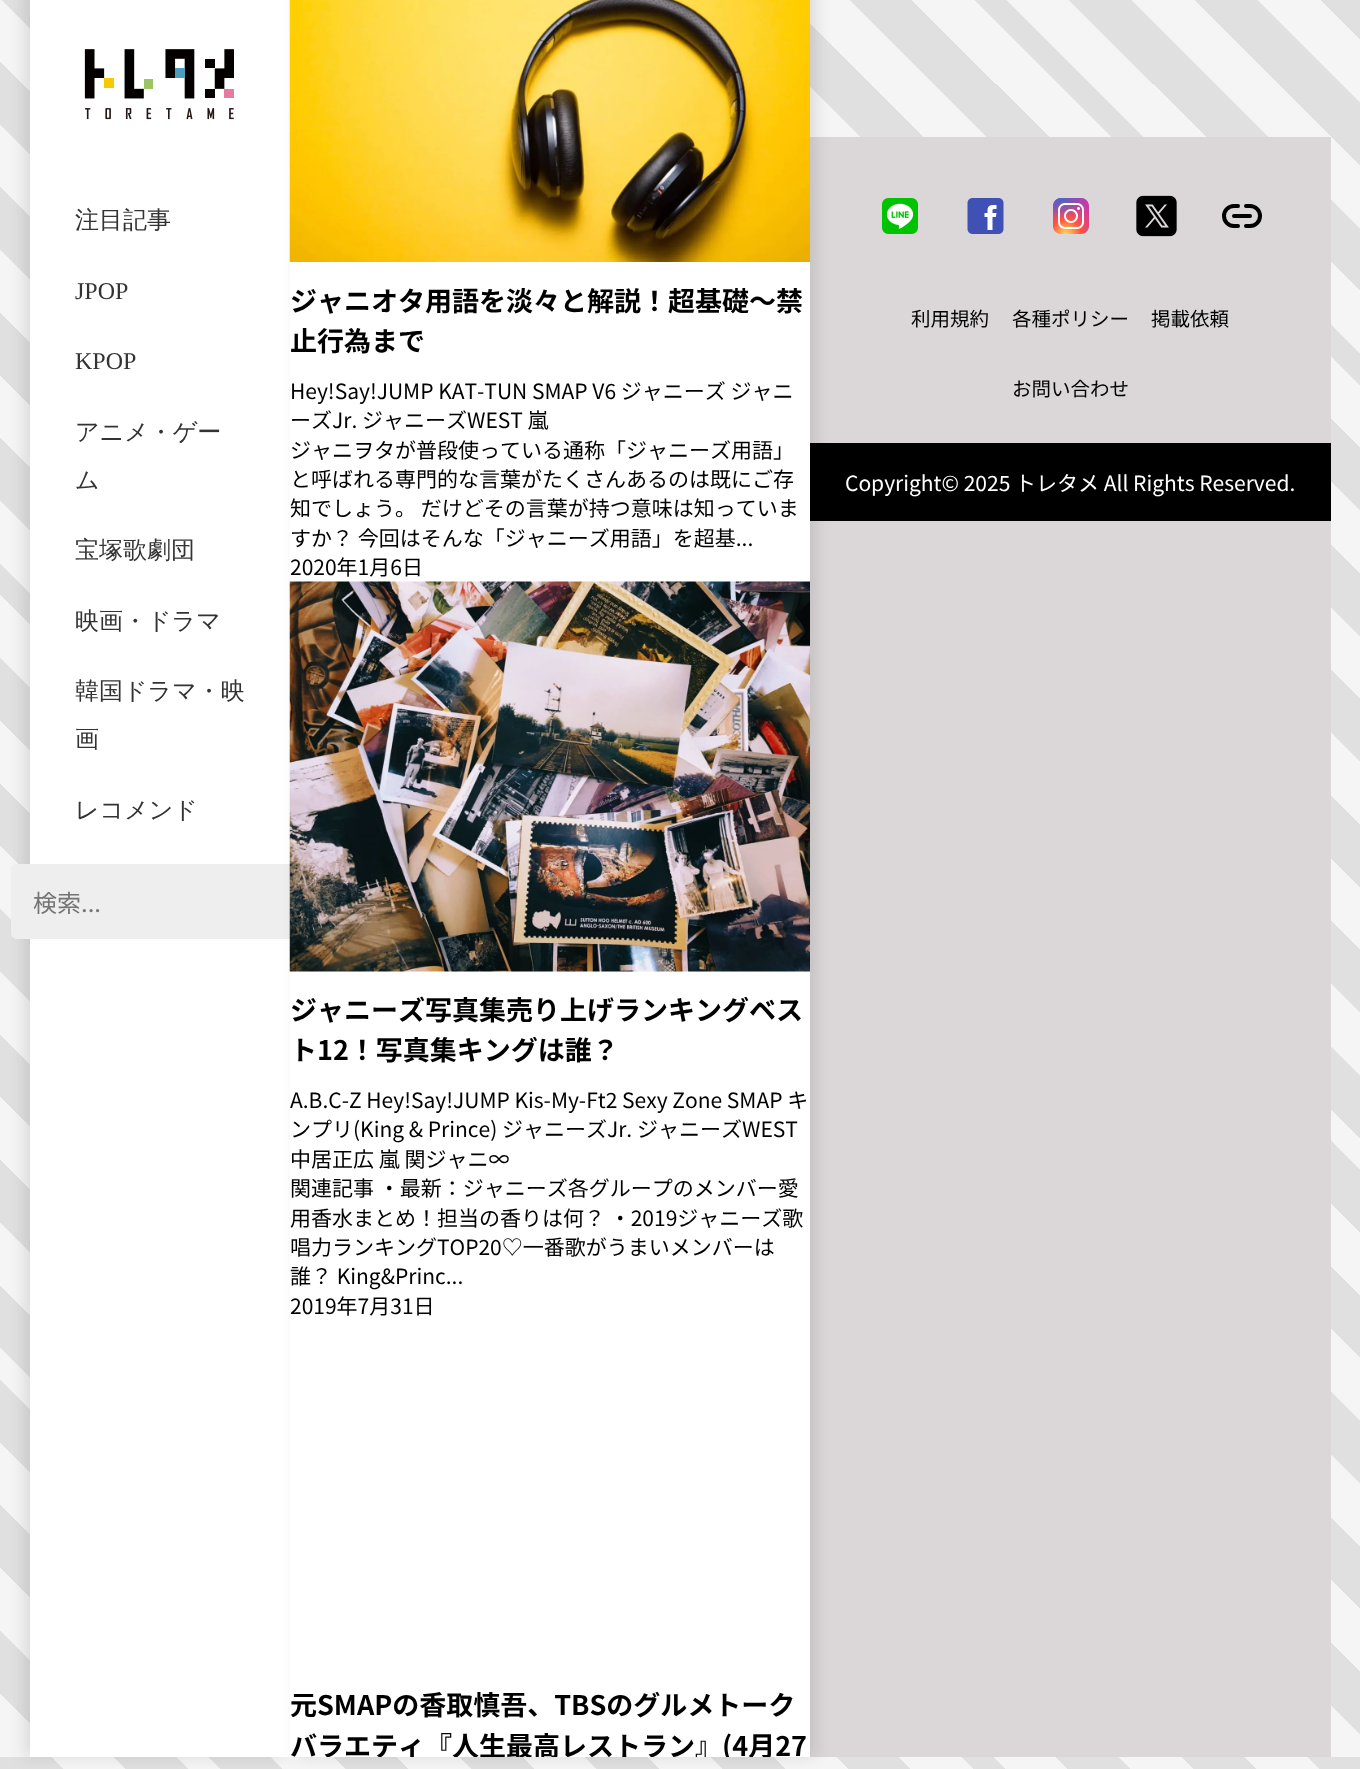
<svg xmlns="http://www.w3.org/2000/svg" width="1360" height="1769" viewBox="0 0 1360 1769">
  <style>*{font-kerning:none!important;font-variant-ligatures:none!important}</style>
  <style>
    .t1 { font: 500 24px WenQuanYi Zen Hei; fill: #333; }
    .t2 { font: 24px Liberation Serif; fill: #333; }
    .t3 { font: 24px Noto Sans JP; fill: #757575; }
    .t4 { font: bold 27px Noto Sans JP; fill: #000; }
    .t5 { font: 21px Noto Sans JP; fill: #000; }
    .t6 { font: 19.5px Noto Sans JP; fill: #000; }
    .t7 { font: 21px Noto Sans JP; fill: #fff; }
  </style>
  <defs>
    <linearGradient id="g1" gradientUnits="userSpaceOnUse" x1="-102" y1="1654" x2="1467" y2="84"><stop offset="0" stop-color="#f5f5f5"/><stop offset="0.01" stop-color="#f5f5f5"/><stop offset="0.01" stop-color="#e0e0e0"/><stop offset="0.01" stop-color="#e0e0e0"/><stop offset="0.01" stop-color="#f5f5f5"/><stop offset="0.02" stop-color="#f5f5f5"/><stop offset="0.02" stop-color="#e0e0e0"/><stop offset="0.03" stop-color="#e0e0e0"/><stop offset="0.03" stop-color="#f5f5f5"/><stop offset="0.03" stop-color="#f5f5f5"/><stop offset="0.03" stop-color="#e0e0e0"/><stop offset="0.04" stop-color="#e0e0e0"/><stop offset="0.04" stop-color="#f5f5f5"/><stop offset="0.05" stop-color="#f5f5f5"/><stop offset="0.05" stop-color="#e0e0e0"/><stop offset="0.05" stop-color="#e0e0e0"/><stop offset="0.05" stop-color="#f5f5f5"/><stop offset="0.06" stop-color="#f5f5f5"/><stop offset="0.06" stop-color="#e0e0e0"/><stop offset="0.07" stop-color="#e0e0e0"/><stop offset="0.07" stop-color="#f5f5f5"/><stop offset="0.07" stop-color="#f5f5f5"/><stop offset="0.07" stop-color="#e0e0e0"/><stop offset="0.08" stop-color="#e0e0e0"/><stop offset="0.08" stop-color="#f5f5f5"/><stop offset="0.09" stop-color="#f5f5f5"/><stop offset="0.09" stop-color="#e0e0e0"/><stop offset="0.09" stop-color="#e0e0e0"/><stop offset="0.09" stop-color="#f5f5f5"/><stop offset="0.1" stop-color="#f5f5f5"/><stop offset="0.1" stop-color="#e0e0e0"/><stop offset="0.11" stop-color="#e0e0e0"/><stop offset="0.11" stop-color="#f5f5f5"/><stop offset="0.11" stop-color="#f5f5f5"/><stop offset="0.11" stop-color="#e0e0e0"/><stop offset="0.12" stop-color="#e0e0e0"/><stop offset="0.12" stop-color="#f5f5f5"/><stop offset="0.13" stop-color="#f5f5f5"/><stop offset="0.13" stop-color="#e0e0e0"/><stop offset="0.14" stop-color="#e0e0e0"/><stop offset="0.14" stop-color="#f5f5f5"/><stop offset="0.14" stop-color="#f5f5f5"/><stop offset="0.14" stop-color="#e0e0e0"/><stop offset="0.15" stop-color="#e0e0e0"/><stop offset="0.15" stop-color="#f5f5f5"/><stop offset="0.16" stop-color="#f5f5f5"/><stop offset="0.16" stop-color="#e0e0e0"/><stop offset="0.16" stop-color="#e0e0e0"/><stop offset="0.16" stop-color="#f5f5f5"/><stop offset="0.17" stop-color="#f5f5f5"/><stop offset="0.17" stop-color="#e0e0e0"/><stop offset="0.18" stop-color="#e0e0e0"/><stop offset="0.18" stop-color="#f5f5f5"/><stop offset="0.18" stop-color="#f5f5f5"/><stop offset="0.18" stop-color="#e0e0e0"/><stop offset="0.19" stop-color="#e0e0e0"/><stop offset="0.19" stop-color="#f5f5f5"/><stop offset="0.2" stop-color="#f5f5f5"/><stop offset="0.2" stop-color="#e0e0e0"/><stop offset="0.2" stop-color="#e0e0e0"/><stop offset="0.2" stop-color="#f5f5f5"/><stop offset="0.21" stop-color="#f5f5f5"/><stop offset="0.21" stop-color="#e0e0e0"/><stop offset="0.22" stop-color="#e0e0e0"/><stop offset="0.22" stop-color="#f5f5f5"/><stop offset="0.22" stop-color="#f5f5f5"/><stop offset="0.22" stop-color="#e0e0e0"/><stop offset="0.23" stop-color="#e0e0e0"/><stop offset="0.23" stop-color="#f5f5f5"/><stop offset="0.24" stop-color="#f5f5f5"/><stop offset="0.24" stop-color="#e0e0e0"/><stop offset="0.24" stop-color="#e0e0e0"/><stop offset="0.24" stop-color="#f5f5f5"/><stop offset="0.25" stop-color="#f5f5f5"/><stop offset="0.25" stop-color="#e0e0e0"/><stop offset="0.26" stop-color="#e0e0e0"/><stop offset="0.26" stop-color="#f5f5f5"/><stop offset="0.26" stop-color="#f5f5f5"/><stop offset="0.26" stop-color="#e0e0e0"/><stop offset="0.27" stop-color="#e0e0e0"/><stop offset="0.27" stop-color="#f5f5f5"/><stop offset="0.28" stop-color="#f5f5f5"/><stop offset="0.28" stop-color="#e0e0e0"/><stop offset="0.28" stop-color="#e0e0e0"/><stop offset="0.28" stop-color="#f5f5f5"/><stop offset="0.29" stop-color="#f5f5f5"/><stop offset="0.29" stop-color="#e0e0e0"/><stop offset="0.3" stop-color="#e0e0e0"/><stop offset="0.3" stop-color="#f5f5f5"/><stop offset="0.3" stop-color="#f5f5f5"/><stop offset="0.3" stop-color="#e0e0e0"/><stop offset="0.31" stop-color="#e0e0e0"/><stop offset="0.31" stop-color="#f5f5f5"/><stop offset="0.32" stop-color="#f5f5f5"/><stop offset="0.32" stop-color="#e0e0e0"/><stop offset="0.32" stop-color="#e0e0e0"/><stop offset="0.32" stop-color="#f5f5f5"/><stop offset="0.33" stop-color="#f5f5f5"/><stop offset="0.33" stop-color="#e0e0e0"/><stop offset="0.34" stop-color="#e0e0e0"/><stop offset="0.34" stop-color="#f5f5f5"/><stop offset="0.34" stop-color="#f5f5f5"/><stop offset="0.34" stop-color="#e0e0e0"/><stop offset="0.35" stop-color="#e0e0e0"/><stop offset="0.35" stop-color="#f5f5f5"/><stop offset="0.36" stop-color="#f5f5f5"/><stop offset="0.36" stop-color="#e0e0e0"/><stop offset="0.36" stop-color="#e0e0e0"/><stop offset="0.36" stop-color="#f5f5f5"/><stop offset="0.37" stop-color="#f5f5f5"/><stop offset="0.37" stop-color="#e0e0e0"/><stop offset="0.38" stop-color="#e0e0e0"/><stop offset="0.38" stop-color="#f5f5f5"/><stop offset="0.39" stop-color="#f5f5f5"/><stop offset="0.39" stop-color="#e0e0e0"/><stop offset="0.39" stop-color="#e0e0e0"/><stop offset="0.39" stop-color="#f5f5f5"/><stop offset="0.4" stop-color="#f5f5f5"/><stop offset="0.4" stop-color="#e0e0e0"/><stop offset="0.41" stop-color="#e0e0e0"/><stop offset="0.41" stop-color="#f5f5f5"/><stop offset="0.41" stop-color="#f5f5f5"/><stop offset="0.41" stop-color="#e0e0e0"/><stop offset="0.42" stop-color="#e0e0e0"/><stop offset="0.42" stop-color="#f5f5f5"/><stop offset="0.43" stop-color="#f5f5f5"/><stop offset="0.43" stop-color="#e0e0e0"/><stop offset="0.43" stop-color="#e0e0e0"/><stop offset="0.43" stop-color="#f5f5f5"/><stop offset="0.44" stop-color="#f5f5f5"/><stop offset="0.44" stop-color="#e0e0e0"/><stop offset="0.45" stop-color="#e0e0e0"/><stop offset="0.45" stop-color="#f5f5f5"/><stop offset="0.45" stop-color="#f5f5f5"/><stop offset="0.45" stop-color="#e0e0e0"/><stop offset="0.46" stop-color="#e0e0e0"/><stop offset="0.46" stop-color="#f5f5f5"/><stop offset="0.47" stop-color="#f5f5f5"/><stop offset="0.47" stop-color="#e0e0e0"/><stop offset="0.47" stop-color="#e0e0e0"/><stop offset="0.47" stop-color="#f5f5f5"/><stop offset="0.48" stop-color="#f5f5f5"/><stop offset="0.48" stop-color="#e0e0e0"/><stop offset="0.49" stop-color="#e0e0e0"/><stop offset="0.49" stop-color="#f5f5f5"/><stop offset="0.49" stop-color="#f5f5f5"/><stop offset="0.49" stop-color="#e0e0e0"/><stop offset="0.5" stop-color="#e0e0e0"/><stop offset="0.5" stop-color="#f5f5f5"/><stop offset="0.51" stop-color="#f5f5f5"/><stop offset="0.51" stop-color="#e0e0e0"/><stop offset="0.51" stop-color="#e0e0e0"/><stop offset="0.51" stop-color="#f5f5f5"/><stop offset="0.52" stop-color="#f5f5f5"/><stop offset="0.52" stop-color="#e0e0e0"/><stop offset="0.53" stop-color="#e0e0e0"/><stop offset="0.53" stop-color="#f5f5f5"/><stop offset="0.53" stop-color="#f5f5f5"/><stop offset="0.53" stop-color="#e0e0e0"/><stop offset="0.54" stop-color="#e0e0e0"/><stop offset="0.54" stop-color="#f5f5f5"/><stop offset="0.55" stop-color="#f5f5f5"/><stop offset="0.55" stop-color="#e0e0e0"/><stop offset="0.55" stop-color="#e0e0e0"/><stop offset="0.55" stop-color="#f5f5f5"/><stop offset="0.56" stop-color="#f5f5f5"/><stop offset="0.56" stop-color="#e0e0e0"/><stop offset="0.57" stop-color="#e0e0e0"/><stop offset="0.57" stop-color="#f5f5f5"/><stop offset="0.57" stop-color="#f5f5f5"/><stop offset="0.57" stop-color="#e0e0e0"/><stop offset="0.58" stop-color="#e0e0e0"/><stop offset="0.58" stop-color="#f5f5f5"/><stop offset="0.59" stop-color="#f5f5f5"/><stop offset="0.59" stop-color="#e0e0e0"/><stop offset="0.59" stop-color="#e0e0e0"/><stop offset="0.59" stop-color="#f5f5f5"/><stop offset="0.6" stop-color="#f5f5f5"/><stop offset="0.6" stop-color="#e0e0e0"/><stop offset="0.61" stop-color="#e0e0e0"/><stop offset="0.61" stop-color="#f5f5f5"/><stop offset="0.61" stop-color="#f5f5f5"/><stop offset="0.61" stop-color="#e0e0e0"/><stop offset="0.62" stop-color="#e0e0e0"/><stop offset="0.62" stop-color="#f5f5f5"/><stop offset="0.63" stop-color="#f5f5f5"/><stop offset="0.63" stop-color="#e0e0e0"/><stop offset="0.64" stop-color="#e0e0e0"/><stop offset="0.64" stop-color="#f5f5f5"/><stop offset="0.64" stop-color="#f5f5f5"/><stop offset="0.64" stop-color="#e0e0e0"/><stop offset="0.65" stop-color="#e0e0e0"/><stop offset="0.65" stop-color="#f5f5f5"/><stop offset="0.66" stop-color="#f5f5f5"/><stop offset="0.66" stop-color="#e0e0e0"/><stop offset="0.66" stop-color="#e0e0e0"/><stop offset="0.66" stop-color="#f5f5f5"/><stop offset="0.67" stop-color="#f5f5f5"/><stop offset="0.67" stop-color="#e0e0e0"/><stop offset="0.68" stop-color="#e0e0e0"/><stop offset="0.68" stop-color="#f5f5f5"/><stop offset="0.68" stop-color="#f5f5f5"/><stop offset="0.68" stop-color="#e0e0e0"/><stop offset="0.69" stop-color="#e0e0e0"/><stop offset="0.69" stop-color="#f5f5f5"/><stop offset="0.7" stop-color="#f5f5f5"/><stop offset="0.7" stop-color="#e0e0e0"/><stop offset="0.7" stop-color="#e0e0e0"/><stop offset="0.7" stop-color="#f5f5f5"/><stop offset="0.71" stop-color="#f5f5f5"/><stop offset="0.71" stop-color="#e0e0e0"/><stop offset="0.72" stop-color="#e0e0e0"/><stop offset="0.72" stop-color="#f5f5f5"/><stop offset="0.72" stop-color="#f5f5f5"/><stop offset="0.72" stop-color="#e0e0e0"/><stop offset="0.73" stop-color="#e0e0e0"/><stop offset="0.73" stop-color="#f5f5f5"/><stop offset="0.74" stop-color="#f5f5f5"/><stop offset="0.74" stop-color="#e0e0e0"/><stop offset="0.74" stop-color="#e0e0e0"/><stop offset="0.74" stop-color="#f5f5f5"/><stop offset="0.75" stop-color="#f5f5f5"/><stop offset="0.75" stop-color="#e0e0e0"/><stop offset="0.76" stop-color="#e0e0e0"/><stop offset="0.76" stop-color="#f5f5f5"/><stop offset="0.76" stop-color="#f5f5f5"/><stop offset="0.76" stop-color="#e0e0e0"/><stop offset="0.77" stop-color="#e0e0e0"/><stop offset="0.77" stop-color="#f5f5f5"/><stop offset="0.78" stop-color="#f5f5f5"/><stop offset="0.78" stop-color="#e0e0e0"/><stop offset="0.78" stop-color="#e0e0e0"/><stop offset="0.78" stop-color="#f5f5f5"/><stop offset="0.79" stop-color="#f5f5f5"/><stop offset="0.79" stop-color="#e0e0e0"/><stop offset="0.8" stop-color="#e0e0e0"/><stop offset="0.8" stop-color="#f5f5f5"/><stop offset="0.8" stop-color="#f5f5f5"/><stop offset="0.8" stop-color="#e0e0e0"/><stop offset="0.81" stop-color="#e0e0e0"/><stop offset="0.81" stop-color="#f5f5f5"/><stop offset="0.82" stop-color="#f5f5f5"/><stop offset="0.82" stop-color="#e0e0e0"/><stop offset="0.82" stop-color="#e0e0e0"/><stop offset="0.82" stop-color="#f5f5f5"/><stop offset="0.83" stop-color="#f5f5f5"/><stop offset="0.83" stop-color="#e0e0e0"/><stop offset="0.84" stop-color="#e0e0e0"/><stop offset="0.84" stop-color="#f5f5f5"/><stop offset="0.84" stop-color="#f5f5f5"/><stop offset="0.84" stop-color="#e0e0e0"/><stop offset="0.85" stop-color="#e0e0e0"/><stop offset="0.85" stop-color="#f5f5f5"/><stop offset="0.86" stop-color="#f5f5f5"/><stop offset="0.86" stop-color="#e0e0e0"/><stop offset="0.86" stop-color="#e0e0e0"/><stop offset="0.86" stop-color="#f5f5f5"/><stop offset="0.87" stop-color="#f5f5f5"/><stop offset="0.87" stop-color="#e0e0e0"/><stop offset="0.88" stop-color="#e0e0e0"/><stop offset="0.88" stop-color="#f5f5f5"/><stop offset="0.89" stop-color="#f5f5f5"/><stop offset="0.89" stop-color="#e0e0e0"/><stop offset="0.89" stop-color="#e0e0e0"/><stop offset="0.89" stop-color="#f5f5f5"/><stop offset="0.9" stop-color="#f5f5f5"/><stop offset="0.9" stop-color="#e0e0e0"/><stop offset="0.91" stop-color="#e0e0e0"/><stop offset="0.91" stop-color="#f5f5f5"/><stop offset="0.91" stop-color="#f5f5f5"/><stop offset="0.91" stop-color="#e0e0e0"/><stop offset="0.92" stop-color="#e0e0e0"/><stop offset="0.92" stop-color="#f5f5f5"/><stop offset="0.93" stop-color="#f5f5f5"/><stop offset="0.93" stop-color="#e0e0e0"/><stop offset="0.93" stop-color="#e0e0e0"/><stop offset="0.93" stop-color="#f5f5f5"/><stop offset="0.94" stop-color="#f5f5f5"/><stop offset="0.94" stop-color="#e0e0e0"/><stop offset="0.95" stop-color="#e0e0e0"/><stop offset="0.95" stop-color="#f5f5f5"/><stop offset="0.95" stop-color="#f5f5f5"/><stop offset="0.95" stop-color="#e0e0e0"/><stop offset="0.96" stop-color="#e0e0e0"/><stop offset="0.96" stop-color="#f5f5f5"/><stop offset="0.97" stop-color="#f5f5f5"/><stop offset="0.97" stop-color="#e0e0e0"/><stop offset="0.97" stop-color="#e0e0e0"/><stop offset="0.97" stop-color="#f5f5f5"/><stop offset="0.98" stop-color="#f5f5f5"/><stop offset="0.98" stop-color="#e0e0e0"/><stop offset="0.99" stop-color="#e0e0e0"/><stop offset="0.99" stop-color="#f5f5f5"/><stop offset="0.99" stop-color="#f5f5f5"/><stop offset="0.99" stop-color="#e0e0e0"/><stop offset="1" stop-color="#e0e0e0"/></linearGradient>
    <linearGradient id="g2" gradientUnits="userSpaceOnUse" x1="-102" y1="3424" x2="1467" y2="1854"><stop offset="0" stop-color="#f5f5f5"/><stop offset="0.01" stop-color="#f5f5f5"/><stop offset="0.01" stop-color="#e0e0e0"/><stop offset="0.01" stop-color="#e0e0e0"/><stop offset="0.01" stop-color="#f5f5f5"/><stop offset="0.02" stop-color="#f5f5f5"/><stop offset="0.02" stop-color="#e0e0e0"/><stop offset="0.03" stop-color="#e0e0e0"/><stop offset="0.03" stop-color="#f5f5f5"/><stop offset="0.03" stop-color="#f5f5f5"/><stop offset="0.03" stop-color="#e0e0e0"/><stop offset="0.04" stop-color="#e0e0e0"/><stop offset="0.04" stop-color="#f5f5f5"/><stop offset="0.05" stop-color="#f5f5f5"/><stop offset="0.05" stop-color="#e0e0e0"/><stop offset="0.05" stop-color="#e0e0e0"/><stop offset="0.05" stop-color="#f5f5f5"/><stop offset="0.06" stop-color="#f5f5f5"/><stop offset="0.06" stop-color="#e0e0e0"/><stop offset="0.07" stop-color="#e0e0e0"/><stop offset="0.07" stop-color="#f5f5f5"/><stop offset="0.07" stop-color="#f5f5f5"/><stop offset="0.07" stop-color="#e0e0e0"/><stop offset="0.08" stop-color="#e0e0e0"/><stop offset="0.08" stop-color="#f5f5f5"/><stop offset="0.09" stop-color="#f5f5f5"/><stop offset="0.09" stop-color="#e0e0e0"/><stop offset="0.09" stop-color="#e0e0e0"/><stop offset="0.09" stop-color="#f5f5f5"/><stop offset="0.1" stop-color="#f5f5f5"/><stop offset="0.1" stop-color="#e0e0e0"/><stop offset="0.11" stop-color="#e0e0e0"/><stop offset="0.11" stop-color="#f5f5f5"/><stop offset="0.11" stop-color="#f5f5f5"/><stop offset="0.11" stop-color="#e0e0e0"/><stop offset="0.12" stop-color="#e0e0e0"/><stop offset="0.12" stop-color="#f5f5f5"/><stop offset="0.13" stop-color="#f5f5f5"/><stop offset="0.13" stop-color="#e0e0e0"/><stop offset="0.14" stop-color="#e0e0e0"/><stop offset="0.14" stop-color="#f5f5f5"/><stop offset="0.14" stop-color="#f5f5f5"/><stop offset="0.14" stop-color="#e0e0e0"/><stop offset="0.15" stop-color="#e0e0e0"/><stop offset="0.15" stop-color="#f5f5f5"/><stop offset="0.16" stop-color="#f5f5f5"/><stop offset="0.16" stop-color="#e0e0e0"/><stop offset="0.16" stop-color="#e0e0e0"/><stop offset="0.16" stop-color="#f5f5f5"/><stop offset="0.17" stop-color="#f5f5f5"/><stop offset="0.17" stop-color="#e0e0e0"/><stop offset="0.18" stop-color="#e0e0e0"/><stop offset="0.18" stop-color="#f5f5f5"/><stop offset="0.18" stop-color="#f5f5f5"/><stop offset="0.18" stop-color="#e0e0e0"/><stop offset="0.19" stop-color="#e0e0e0"/><stop offset="0.19" stop-color="#f5f5f5"/><stop offset="0.2" stop-color="#f5f5f5"/><stop offset="0.2" stop-color="#e0e0e0"/><stop offset="0.2" stop-color="#e0e0e0"/><stop offset="0.2" stop-color="#f5f5f5"/><stop offset="0.21" stop-color="#f5f5f5"/><stop offset="0.21" stop-color="#e0e0e0"/><stop offset="0.22" stop-color="#e0e0e0"/><stop offset="0.22" stop-color="#f5f5f5"/><stop offset="0.22" stop-color="#f5f5f5"/><stop offset="0.22" stop-color="#e0e0e0"/><stop offset="0.23" stop-color="#e0e0e0"/><stop offset="0.23" stop-color="#f5f5f5"/><stop offset="0.24" stop-color="#f5f5f5"/><stop offset="0.24" stop-color="#e0e0e0"/><stop offset="0.24" stop-color="#e0e0e0"/><stop offset="0.24" stop-color="#f5f5f5"/><stop offset="0.25" stop-color="#f5f5f5"/><stop offset="0.25" stop-color="#e0e0e0"/><stop offset="0.26" stop-color="#e0e0e0"/><stop offset="0.26" stop-color="#f5f5f5"/><stop offset="0.26" stop-color="#f5f5f5"/><stop offset="0.26" stop-color="#e0e0e0"/><stop offset="0.27" stop-color="#e0e0e0"/><stop offset="0.27" stop-color="#f5f5f5"/><stop offset="0.28" stop-color="#f5f5f5"/><stop offset="0.28" stop-color="#e0e0e0"/><stop offset="0.28" stop-color="#e0e0e0"/><stop offset="0.28" stop-color="#f5f5f5"/><stop offset="0.29" stop-color="#f5f5f5"/><stop offset="0.29" stop-color="#e0e0e0"/><stop offset="0.3" stop-color="#e0e0e0"/><stop offset="0.3" stop-color="#f5f5f5"/><stop offset="0.3" stop-color="#f5f5f5"/><stop offset="0.3" stop-color="#e0e0e0"/><stop offset="0.31" stop-color="#e0e0e0"/><stop offset="0.31" stop-color="#f5f5f5"/><stop offset="0.32" stop-color="#f5f5f5"/><stop offset="0.32" stop-color="#e0e0e0"/><stop offset="0.32" stop-color="#e0e0e0"/><stop offset="0.32" stop-color="#f5f5f5"/><stop offset="0.33" stop-color="#f5f5f5"/><stop offset="0.33" stop-color="#e0e0e0"/><stop offset="0.34" stop-color="#e0e0e0"/><stop offset="0.34" stop-color="#f5f5f5"/><stop offset="0.34" stop-color="#f5f5f5"/><stop offset="0.34" stop-color="#e0e0e0"/><stop offset="0.35" stop-color="#e0e0e0"/><stop offset="0.35" stop-color="#f5f5f5"/><stop offset="0.36" stop-color="#f5f5f5"/><stop offset="0.36" stop-color="#e0e0e0"/><stop offset="0.36" stop-color="#e0e0e0"/><stop offset="0.36" stop-color="#f5f5f5"/><stop offset="0.37" stop-color="#f5f5f5"/><stop offset="0.37" stop-color="#e0e0e0"/><stop offset="0.38" stop-color="#e0e0e0"/><stop offset="0.38" stop-color="#f5f5f5"/><stop offset="0.39" stop-color="#f5f5f5"/><stop offset="0.39" stop-color="#e0e0e0"/><stop offset="0.39" stop-color="#e0e0e0"/><stop offset="0.39" stop-color="#f5f5f5"/><stop offset="0.4" stop-color="#f5f5f5"/><stop offset="0.4" stop-color="#e0e0e0"/><stop offset="0.41" stop-color="#e0e0e0"/><stop offset="0.41" stop-color="#f5f5f5"/><stop offset="0.41" stop-color="#f5f5f5"/><stop offset="0.41" stop-color="#e0e0e0"/><stop offset="0.42" stop-color="#e0e0e0"/><stop offset="0.42" stop-color="#f5f5f5"/><stop offset="0.43" stop-color="#f5f5f5"/><stop offset="0.43" stop-color="#e0e0e0"/><stop offset="0.43" stop-color="#e0e0e0"/><stop offset="0.43" stop-color="#f5f5f5"/><stop offset="0.44" stop-color="#f5f5f5"/><stop offset="0.44" stop-color="#e0e0e0"/><stop offset="0.45" stop-color="#e0e0e0"/><stop offset="0.45" stop-color="#f5f5f5"/><stop offset="0.45" stop-color="#f5f5f5"/><stop offset="0.45" stop-color="#e0e0e0"/><stop offset="0.46" stop-color="#e0e0e0"/><stop offset="0.46" stop-color="#f5f5f5"/><stop offset="0.47" stop-color="#f5f5f5"/><stop offset="0.47" stop-color="#e0e0e0"/><stop offset="0.47" stop-color="#e0e0e0"/><stop offset="0.47" stop-color="#f5f5f5"/><stop offset="0.48" stop-color="#f5f5f5"/><stop offset="0.48" stop-color="#e0e0e0"/><stop offset="0.49" stop-color="#e0e0e0"/><stop offset="0.49" stop-color="#f5f5f5"/><stop offset="0.49" stop-color="#f5f5f5"/><stop offset="0.49" stop-color="#e0e0e0"/><stop offset="0.5" stop-color="#e0e0e0"/><stop offset="0.5" stop-color="#f5f5f5"/><stop offset="0.51" stop-color="#f5f5f5"/><stop offset="0.51" stop-color="#e0e0e0"/><stop offset="0.51" stop-color="#e0e0e0"/><stop offset="0.51" stop-color="#f5f5f5"/><stop offset="0.52" stop-color="#f5f5f5"/><stop offset="0.52" stop-color="#e0e0e0"/><stop offset="0.53" stop-color="#e0e0e0"/><stop offset="0.53" stop-color="#f5f5f5"/><stop offset="0.53" stop-color="#f5f5f5"/><stop offset="0.53" stop-color="#e0e0e0"/><stop offset="0.54" stop-color="#e0e0e0"/><stop offset="0.54" stop-color="#f5f5f5"/><stop offset="0.55" stop-color="#f5f5f5"/><stop offset="0.55" stop-color="#e0e0e0"/><stop offset="0.55" stop-color="#e0e0e0"/><stop offset="0.55" stop-color="#f5f5f5"/><stop offset="0.56" stop-color="#f5f5f5"/><stop offset="0.56" stop-color="#e0e0e0"/><stop offset="0.57" stop-color="#e0e0e0"/><stop offset="0.57" stop-color="#f5f5f5"/><stop offset="0.57" stop-color="#f5f5f5"/><stop offset="0.57" stop-color="#e0e0e0"/><stop offset="0.58" stop-color="#e0e0e0"/><stop offset="0.58" stop-color="#f5f5f5"/><stop offset="0.59" stop-color="#f5f5f5"/><stop offset="0.59" stop-color="#e0e0e0"/><stop offset="0.59" stop-color="#e0e0e0"/><stop offset="0.59" stop-color="#f5f5f5"/><stop offset="0.6" stop-color="#f5f5f5"/><stop offset="0.6" stop-color="#e0e0e0"/><stop offset="0.61" stop-color="#e0e0e0"/><stop offset="0.61" stop-color="#f5f5f5"/><stop offset="0.61" stop-color="#f5f5f5"/><stop offset="0.61" stop-color="#e0e0e0"/><stop offset="0.62" stop-color="#e0e0e0"/><stop offset="0.62" stop-color="#f5f5f5"/><stop offset="0.63" stop-color="#f5f5f5"/><stop offset="0.63" stop-color="#e0e0e0"/><stop offset="0.64" stop-color="#e0e0e0"/><stop offset="0.64" stop-color="#f5f5f5"/><stop offset="0.64" stop-color="#f5f5f5"/><stop offset="0.64" stop-color="#e0e0e0"/><stop offset="0.65" stop-color="#e0e0e0"/><stop offset="0.65" stop-color="#f5f5f5"/><stop offset="0.66" stop-color="#f5f5f5"/><stop offset="0.66" stop-color="#e0e0e0"/><stop offset="0.66" stop-color="#e0e0e0"/><stop offset="0.66" stop-color="#f5f5f5"/><stop offset="0.67" stop-color="#f5f5f5"/><stop offset="0.67" stop-color="#e0e0e0"/><stop offset="0.68" stop-color="#e0e0e0"/><stop offset="0.68" stop-color="#f5f5f5"/><stop offset="0.68" stop-color="#f5f5f5"/><stop offset="0.68" stop-color="#e0e0e0"/><stop offset="0.69" stop-color="#e0e0e0"/><stop offset="0.69" stop-color="#f5f5f5"/><stop offset="0.7" stop-color="#f5f5f5"/><stop offset="0.7" stop-color="#e0e0e0"/><stop offset="0.7" stop-color="#e0e0e0"/><stop offset="0.7" stop-color="#f5f5f5"/><stop offset="0.71" stop-color="#f5f5f5"/><stop offset="0.71" stop-color="#e0e0e0"/><stop offset="0.72" stop-color="#e0e0e0"/><stop offset="0.72" stop-color="#f5f5f5"/><stop offset="0.72" stop-color="#f5f5f5"/><stop offset="0.72" stop-color="#e0e0e0"/><stop offset="0.73" stop-color="#e0e0e0"/><stop offset="0.73" stop-color="#f5f5f5"/><stop offset="0.74" stop-color="#f5f5f5"/><stop offset="0.74" stop-color="#e0e0e0"/><stop offset="0.74" stop-color="#e0e0e0"/><stop offset="0.74" stop-color="#f5f5f5"/><stop offset="0.75" stop-color="#f5f5f5"/><stop offset="0.75" stop-color="#e0e0e0"/><stop offset="0.76" stop-color="#e0e0e0"/><stop offset="0.76" stop-color="#f5f5f5"/><stop offset="0.76" stop-color="#f5f5f5"/><stop offset="0.76" stop-color="#e0e0e0"/><stop offset="0.77" stop-color="#e0e0e0"/><stop offset="0.77" stop-color="#f5f5f5"/><stop offset="0.78" stop-color="#f5f5f5"/><stop offset="0.78" stop-color="#e0e0e0"/><stop offset="0.78" stop-color="#e0e0e0"/><stop offset="0.78" stop-color="#f5f5f5"/><stop offset="0.79" stop-color="#f5f5f5"/><stop offset="0.79" stop-color="#e0e0e0"/><stop offset="0.8" stop-color="#e0e0e0"/><stop offset="0.8" stop-color="#f5f5f5"/><stop offset="0.8" stop-color="#f5f5f5"/><stop offset="0.8" stop-color="#e0e0e0"/><stop offset="0.81" stop-color="#e0e0e0"/><stop offset="0.81" stop-color="#f5f5f5"/><stop offset="0.82" stop-color="#f5f5f5"/><stop offset="0.82" stop-color="#e0e0e0"/><stop offset="0.82" stop-color="#e0e0e0"/><stop offset="0.82" stop-color="#f5f5f5"/><stop offset="0.83" stop-color="#f5f5f5"/><stop offset="0.83" stop-color="#e0e0e0"/><stop offset="0.84" stop-color="#e0e0e0"/><stop offset="0.84" stop-color="#f5f5f5"/><stop offset="0.84" stop-color="#f5f5f5"/><stop offset="0.84" stop-color="#e0e0e0"/><stop offset="0.85" stop-color="#e0e0e0"/><stop offset="0.85" stop-color="#f5f5f5"/><stop offset="0.86" stop-color="#f5f5f5"/><stop offset="0.86" stop-color="#e0e0e0"/><stop offset="0.86" stop-color="#e0e0e0"/><stop offset="0.86" stop-color="#f5f5f5"/><stop offset="0.87" stop-color="#f5f5f5"/><stop offset="0.87" stop-color="#e0e0e0"/><stop offset="0.88" stop-color="#e0e0e0"/><stop offset="0.88" stop-color="#f5f5f5"/><stop offset="0.89" stop-color="#f5f5f5"/><stop offset="0.89" stop-color="#e0e0e0"/><stop offset="0.89" stop-color="#e0e0e0"/><stop offset="0.89" stop-color="#f5f5f5"/><stop offset="0.9" stop-color="#f5f5f5"/><stop offset="0.9" stop-color="#e0e0e0"/><stop offset="0.91" stop-color="#e0e0e0"/><stop offset="0.91" stop-color="#f5f5f5"/><stop offset="0.91" stop-color="#f5f5f5"/><stop offset="0.91" stop-color="#e0e0e0"/><stop offset="0.92" stop-color="#e0e0e0"/><stop offset="0.92" stop-color="#f5f5f5"/><stop offset="0.93" stop-color="#f5f5f5"/><stop offset="0.93" stop-color="#e0e0e0"/><stop offset="0.93" stop-color="#e0e0e0"/><stop offset="0.93" stop-color="#f5f5f5"/><stop offset="0.94" stop-color="#f5f5f5"/><stop offset="0.94" stop-color="#e0e0e0"/><stop offset="0.95" stop-color="#e0e0e0"/><stop offset="0.95" stop-color="#f5f5f5"/><stop offset="0.95" stop-color="#f5f5f5"/><stop offset="0.95" stop-color="#e0e0e0"/><stop offset="0.96" stop-color="#e0e0e0"/><stop offset="0.96" stop-color="#f5f5f5"/><stop offset="0.97" stop-color="#f5f5f5"/><stop offset="0.97" stop-color="#e0e0e0"/><stop offset="0.97" stop-color="#e0e0e0"/><stop offset="0.97" stop-color="#f5f5f5"/><stop offset="0.98" stop-color="#f5f5f5"/><stop offset="0.98" stop-color="#e0e0e0"/><stop offset="0.99" stop-color="#e0e0e0"/><stop offset="0.99" stop-color="#f5f5f5"/><stop offset="0.99" stop-color="#f5f5f5"/><stop offset="0.99" stop-color="#e0e0e0"/><stop offset="1" stop-color="#e0e0e0"/></linearGradient>
    <clipPath id="clip1"><rect x="290" y="0" width="520" height="1757"/></clipPath>
  </defs>
  <rect width="100%" height="100%" fill="#fff"/>
  <rect x="0" y="0" width="1360" height="1757" fill="url(#g1)"/>
  <rect x="0" y="1757" width="1360" height="12" fill="url(#g2)"/>
  <rect x="24" y="-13" width="260" height="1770" fill="#0000001a" filter="blur(7.5px)"/>
  <rect x="30" y="0" width="260" height="1757" fill="#fff"/>
  <image x="84" y="49" width="150" height="71" href="images/1.png"/>
  <text x="75" y="228" class="t1">注目記事</text>
  <text x="75" y="299" class="t2">JPOP</text>
  <text x="75" y="369" class="t2">KPOP</text>
  <text x="75" y="440" class="t1">アニメ・ゲー</text>
  <text x="75" y="488" class="t1">ム</text>
  <text x="75" y="558" class="t1">宝塚歌劇団</text>
  <text x="75" y="629" class="t1">映画・ドラマ</text>
  <text x="75" y="699" class="t1">韓国ドラマ・映</text>
  <text x="75" y="747" class="t1">画</text>
  <text x="75" y="818" class="t1">レコメンド</text>
  <path d="M17 864H311V939H17C13.5 939 11 936.5 11 933V870C11 866.5 13.5 864 17 864Z" fill="#eee"/>
  <text x="33" y="912" class="t3">検索...</text>
  <rect x="810" y="137" width="521" height="1620" fill="#dbd7d8"/>
  <rect x="810" y="443" width="521" height="78" fill="#000"/>
  <rect x="296" y="-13" width="520" height="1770" fill="#0000001a" filter="blur(7.5px)"/>
  <rect x="290" y="262" width="520" height="1495" fill="#fff"/>
  <image x="289" y="0" width="521" height="262" href="images/2.png"/>
  <text x="290" y="311" class="t4">ジャニオタ用語を淡々と解説！超基礎～禁</text>
  <text x="290" y="351" class="t4">止行為まで</text>
  <text x="290" y="399" class="t5">Hey!Say!JUMP KAT-TUN</text>
  <text x="532" y="399" class="t5">SMAP V6 ジャニーズ ジャニ</text>
  <text x="290" y="428" class="t5">ーズJr. ジャニー</text>
  <text x="446" y="428" class="t5">ズWEST 嵐</text>
  <text x="290" y="458" class="t5">ジャニヲタが普段使っている通称「ジャニー</text>
  <text x="710" y="458" class="t5">ズ用語」</text>
  <text x="290" y="487" class="t5">と呼ばれる専門的な言葉がたくさんあるのは既にご存</text>
  <text x="290" y="516" class="t5">知でしょう。 だけどその言葉が持つ意味は知っていま</text>
  <text x="290" y="546" class="t5">すか？ 今回はそんな「ジャニーズ用語」を超基...</text>
  <text x="290" y="575" class="t5">2020年1月6日</text>
  <image x="289" y="581" width="521" height="391" href="images/3.png"/>
  <text x="290" y="1020" class="t4">ジャニーズ写真集売り上げランキングベス</text>
  <text x="290" y="1060" class="t4">ト12！写真集キングは誰？</text>
  <text x="290" y="1108" class="t5">A.B.C-Z Hey!Say!JUMP Kis-My-Ft2 Sexy Zone SMAP キ</text>
  <text x="290" y="1137" class="t5">ンプリ(King &amp; Prince) ジャニーズJr.</text>
  <text x="637" y="1137" class="t5">ジャニーズWEST</text>
  <text x="290" y="1167" class="t5">中居正広 嵐 関ジャニ∞</text>
  <text x="290" y="1196" class="t5">関連記事 ・最新：ジャニーズ各グループのメンバー愛</text>
  <text x="290" y="1226" class="t5">用香水まとめ！担当の香りは何？ ・2019ジャニーズ歌</text>
  <text x="290" y="1255" class="t5">唱力ランキングTOP20♡一番歌がうまいメンバーは</text>
  <text x="290" y="1284" class="t5">誰？ King&amp;Princ...</text>
  <text x="290" y="1314" class="t5">2019年7月31日</text>
  <text x="290" y="1715" class="t4">元SMAPの香取慎吾、TBSのグルメトーク</text>
  <g clip-path="url(#clip1)">
    <text x="290" y="1756" class="t4">バラエティ『人生最高レストラン』(4月27</text>
  </g>
  <image x="882" y="198" width="36" height="36" href="images/4.png"/>
  <image x="967" y="198" width="37" height="36" href="images/5.png"/>
  <image x="1053" y="198" width="36" height="36" href="images/6.png"/>
  <image x="1136" y="195" width="41" height="42" href="images/7.png"/>
  <path d="M1246 206H1250C1255.5 206 1260 210.5 1260 216C1260 221.5 1255.5 226 1250 226H1246M1238 206H1234C1228.5 206 1224 210.5 1224 216C1224 221.5 1228.5 226 1234 226H1238M1234 216H1250" fill="none" stroke="#000" stroke-width="4" stroke-linecap="round" stroke-linejoin="round"/>
  <text x="911" y="326" class="t6">利用規約</text>
  <text x="1012" y="326" class="t6">各種ポリシー</text>
  <text x="1151" y="326" class="t6">掲載依頼</text>
  <text x="1012" y="396" class="t6">お問い合わせ</text>
  <text x="845" y="491" class="t7">Copyright© 2025 トレタメ All Rights Reserved.</text>
</svg>
